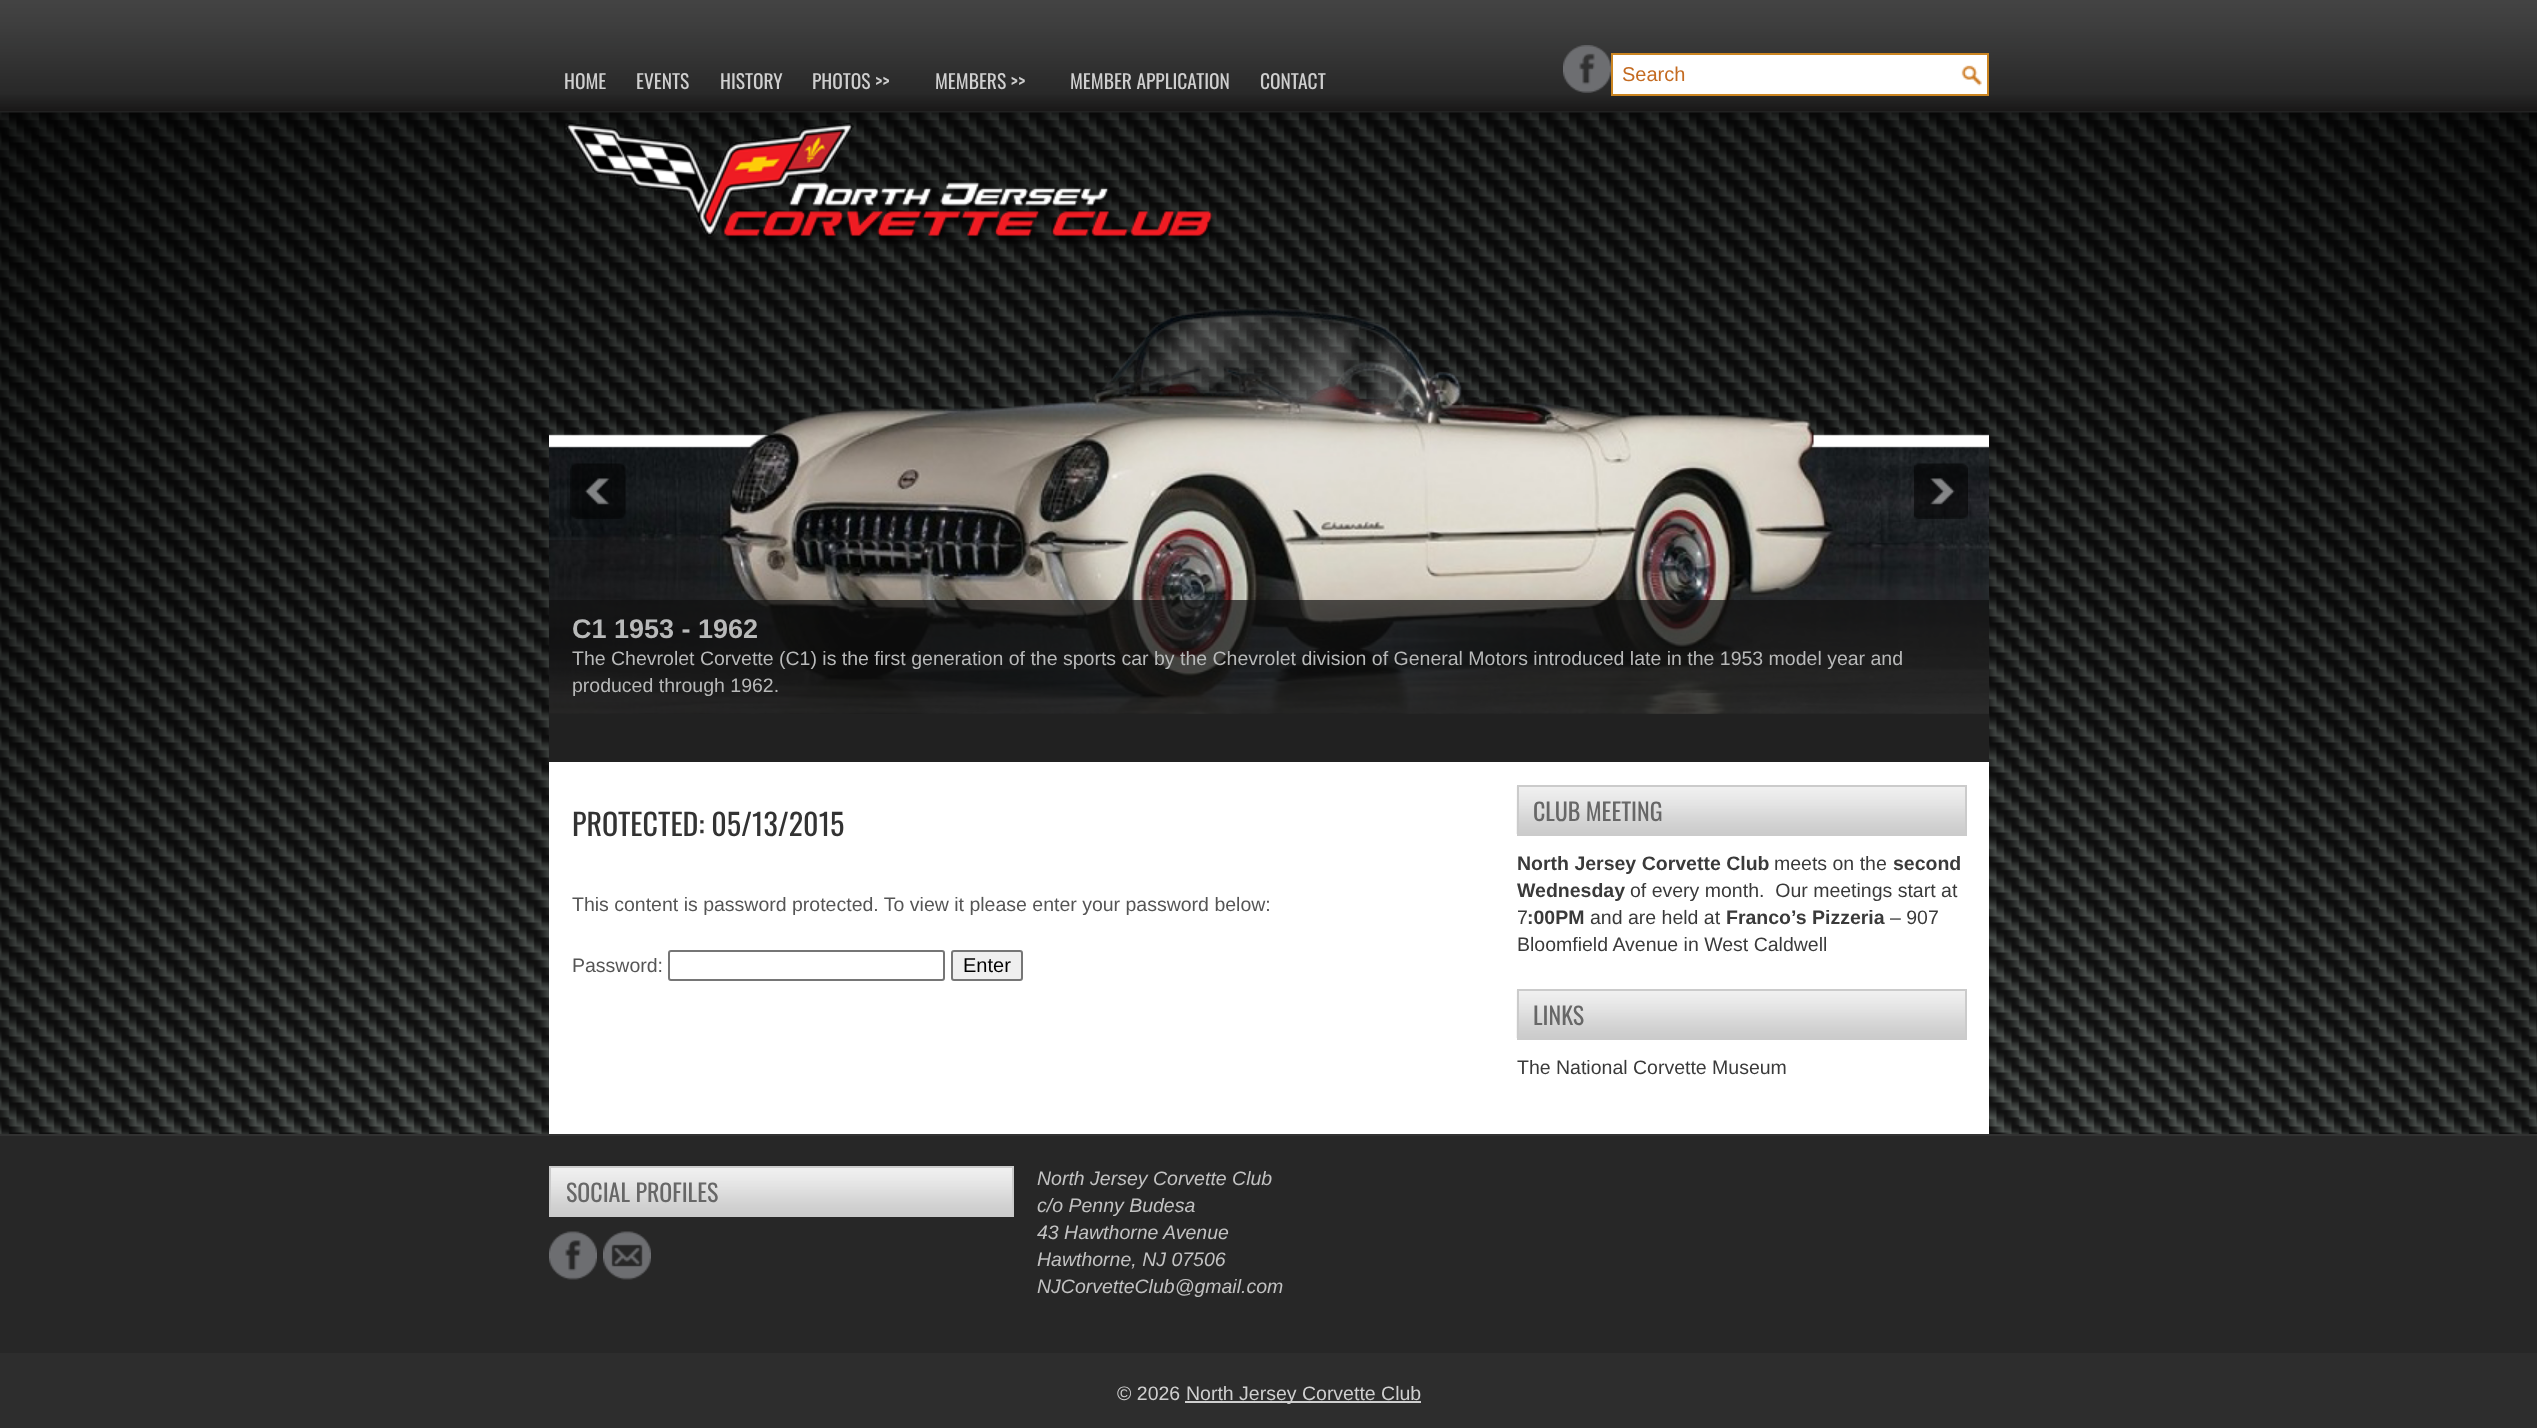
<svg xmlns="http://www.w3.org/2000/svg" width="2537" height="1428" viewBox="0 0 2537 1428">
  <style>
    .t1 { font: 19.5px Oswald; fill: #cfcfcf; }
    .t2 { font: 20px Liberation Sans; fill: #c46b21; }
    .t3 { font: bold 27px Liberation Sans; fill: #b8b9b9; }
    .t4 { font: 19.5px Liberation Sans; fill: #b8b9b9; }
    .t5 { font: 30px Oswald; fill: #333; }
    .t6 { font: 19.5px Liberation Sans; fill: #555; }
    .t7 { font: 20px Liberation Sans; fill: #000; }
    .t8 { font: 24px Oswald; fill: #676767; }
    .t9 { font: bold 19.5px Liberation Sans; fill: #3a3a3a; }
    .t10 { font: 19.5px Liberation Sans; fill: #3a3a3a; }
    .t11 { font: italic 19.5px Liberation Sans; fill: #c2c2c2; }
    .t12 { font: 19.5px Liberation Sans; fill: #cfcfcf; }
  </style>
  <rect width="100%" height="100%" fill="#222"/>
  <image x="0" y="0" width="2537" height="111" href="images/1.png"/>
  <image x="0" y="112" width="2537" height="1022" href="images/2.png"/>
  <text x="564" y="89" class="t1">HOME</text>
  <text x="636" y="89" class="t1">EVENTS</text>
  <text x="720" y="89" class="t1">HISTORY</text>
  <text x="812" y="89" class="t1">PHOTOS &gt;&gt;</text>
  <text x="935" y="89" class="t1">MEMBERS &gt;&gt;</text>
  <text x="1070" y="89" class="t1">MEMBER APPLICATION</text>
  <text x="1260" y="89" class="t1">CONTACT</text>
  <image x="1563" y="45" width="48" height="48" href="images/3.png"/>
  <rect x="1613" y="55" width="374" height="39" fill="#fff"/>
  <image x="1961" y="65" width="21" height="21" href="images/4.png"/>
  <rect x="1612" y="54" width="376" height="41" fill="none" stroke="#cb8521" stroke-width="2"/>
  <text x="1622" y="81" class="t2">Search</text>
  <image x="565" y="122" width="651" height="122" href="images/5.png"/>
  <image x="549" y="305" width="1440" height="409" href="images/8.png"/>
  <image x="570" y="463" width="56" height="56" href="images/6.png"/>
  <image x="1914" y="463" width="54" height="56" href="images/7.png"/>
  <rect x="549" y="600" width="1440" height="114" fill="#111111b3"/>
  <text x="572" y="638" class="t3">C1 1953 - 1962</text>
  <text x="572" y="665" class="t4">The Chevrolet Corvette (C1) is the first generation of the sports car by the Chevrolet division of General Motors introduced late in the 1953 model year and</text>
  <text x="572" y="692" class="t4">produced through 1962.</text>
  <rect x="549" y="714" width="1440" height="48" fill="#212121"/>
  <rect x="549" y="762" width="1440" height="372" fill="#fff"/>
  <text x="572" y="836" class="t5">PROTECTED: 05/13/2015</text>
  <text x="572" y="911" class="t6">This content is password protected. To view it please enter your password below:</text>
  <text x="572" y="972" class="t6">Password:</text>
  <rect x="669" y="951" width="275" height="29" rx="2" fill="none" stroke="#767676" stroke-width="2"/>
  <rect x="952" y="951" width="70" height="29" rx="2" fill="#efefef" stroke="#767676" stroke-width="2"/>
  <text x="963" y="972" class="t7">Enter</text>
  <image x="1516" y="786" width="449" height="48" href="images/9.png"/>
  <rect x="1518" y="786" width="448" height="49" fill="none" stroke="#cbcbcb" stroke-width="2"/>
  <text x="1533" y="821" class="t8">CLUB MEETING</text>
  <text x="1517" y="870" class="t9">North Jersey Corvette Club</text>
  <text x="1774" y="870" class="t10">meets on the</text>
  <text x="1893" y="870" class="t9">second</text>
  <text x="1517" y="897" class="t9">Wednesday</text>
  <text x="1630" y="897" class="t10" xml:space="preserve">of every month.  Our meetings start at</text>
  <text x="1517" y="924" class="t10">7</text>
  <text x="1527" y="924" class="t9">:00PM</text>
  <text x="1590" y="924" class="t10">and are held at</text>
  <text x="1726" y="924" class="t9">Franco’s Pizzeria</text>
  <text x="1890" y="924" class="t10">– 907</text>
  <text x="1517" y="951" class="t10">Bloomfield Avenue in West Caldwell</text>
  <image x="1516" y="990" width="449" height="48" href="images/9.png"/>
  <rect x="1518" y="990" width="448" height="49" fill="none" stroke="#cbcbcb" stroke-width="2"/>
  <text x="1533" y="1025" class="t8">LINKS</text>
  <text x="1517" y="1074" class="t10">The National Corvette Museum</text>
  <rect x="0" y="1136" width="2537" height="217" fill="#272727"/>
  <rect x="0" y="1134" width="2537" height="2" fill="#323232"/>
  <image x="551" y="1168" width="461" height="47" href="images/10.png"/>
  <rect x="550" y="1167" width="463" height="49" fill="none" stroke="#cbcbcb" stroke-width="2"/>
  <text x="566" y="1202" class="t8">SOCIAL PROFILES</text>
  <image x="549" y="1231" width="48" height="49" href="images/11.png"/>
  <image x="603" y="1231" width="48" height="49" href="images/12.png"/>
  <text x="1037" y="1185" class="t11">North Jersey Corvette Club</text>
  <text x="1037" y="1212" class="t11">c/o Penny Budesa</text>
  <text x="1037" y="1239" class="t11">43 Hawthorne Avenue</text>
  <text x="1037" y="1266" class="t11">Hawthorne, NJ 07506</text>
  <text x="1037" y="1293" class="t11">NJCorvetteClub@gmail.com</text>
  <rect x="0" y="1353" width="2537" height="75" fill="#2d2d2d"/>
  <text x="1117" y="1400" class="t12">© 2026</text>
  <rect x="1185" y="1401" width="236" height="2" fill="#cfcfcf"/>
  <text x="1186" y="1400" class="t12">North Jersey Corvette Club</text>
</svg>
